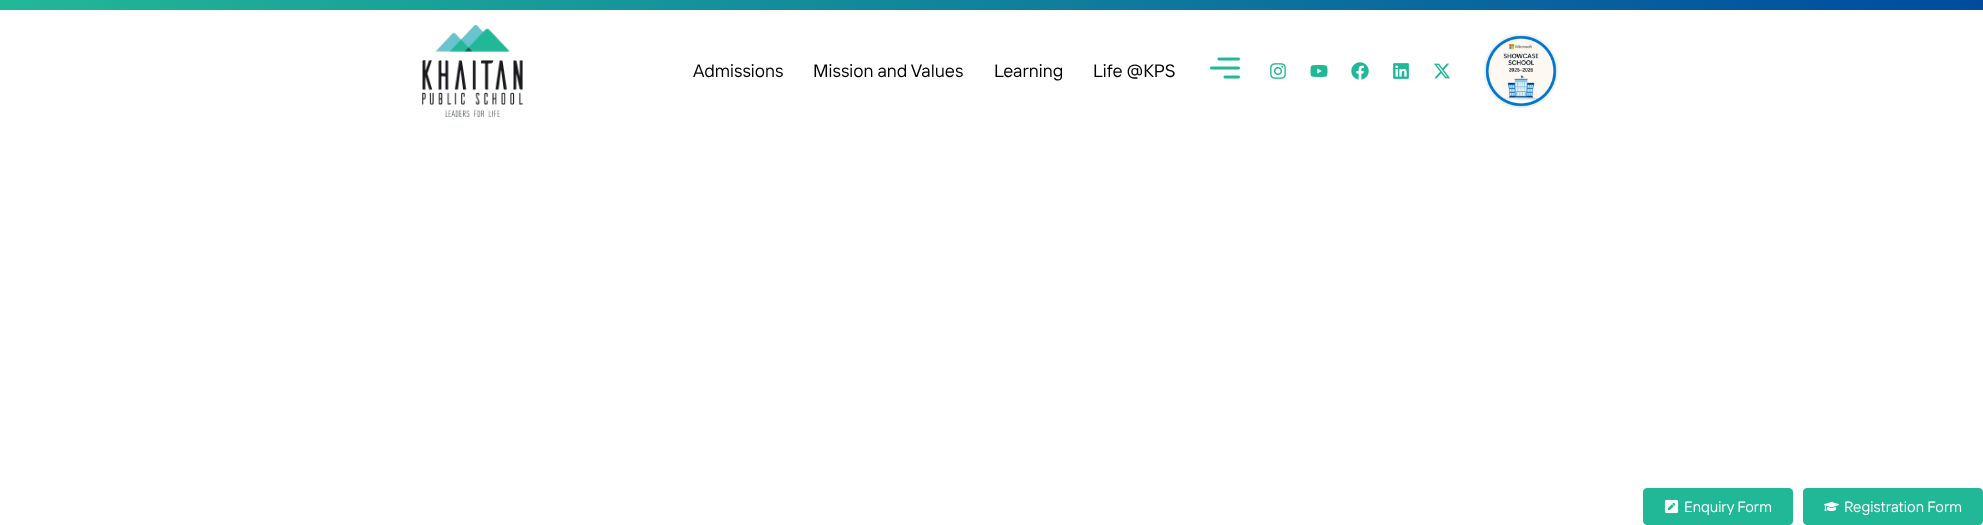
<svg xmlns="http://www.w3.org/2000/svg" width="1983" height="525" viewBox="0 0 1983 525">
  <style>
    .t1 { font: 18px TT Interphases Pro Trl; fill: #000; }
    .t2 { font: 15px TT Interphases Pro Trl; fill: #fff; }
  </style>
  <defs>
    <linearGradient id="g1" gradientUnits="userSpaceOnUse" x1="0" y1="5" x2="1983" y2="5"><stop offset="0" stop-color="#21b897"/><stop offset="1" stop-color="#004ba0"/></linearGradient>
  </defs>
  <rect width="100%" height="100%" fill="#fff"/>
  <rect x="0" y="0" width="1983" height="10" fill="url(#g1)"/>
  <image x="422" y="25" width="101" height="92" href="images/1.png"/>
  <text x="693" y="77" class="t1">Admissions</text>
  <text x="813" y="77" class="t1">Mission and Values</text>
  <text x="994" y="77" class="t1">Learning</text>
  <text x="1093" y="77" class="t1">Life @KPS</text>
  <image x="1210" y="57" width="30" height="22" href="images/2.png"/>
  <image x="1270" y="63" width="16" height="16" href="images/3.png"/>
  <image x="1310" y="65" width="18" height="12" href="images/4.png"/>
  <image x="1351" y="62" width="18" height="18" href="images/5.png"/>
  <image x="1393" y="63" width="16" height="16" href="images/6.png"/>
  <image x="1434" y="63" width="16" height="16" href="images/7.png"/>
  <image x="1484" y="34" width="74" height="74" href="images/8.png"/>
  <rect x="1643.5" y="488.5" width="149" height="36" rx="3.5" fill="#21b897" stroke="#21b897"/>
  <image x="1664" y="499" width="15" height="15" href="images/9.png"/>
  <text x="1684" y="512" class="t2">Enquiry Form</text>
  <rect x="1803.5" y="488.5" width="179" height="36" rx="3.5" fill="#21b897" stroke="#21b897"/>
  <image x="1824" y="502" width="15" height="9" href="images/10.png"/>
  <text x="1844" y="512" class="t2">Registration Form</text>
</svg>
